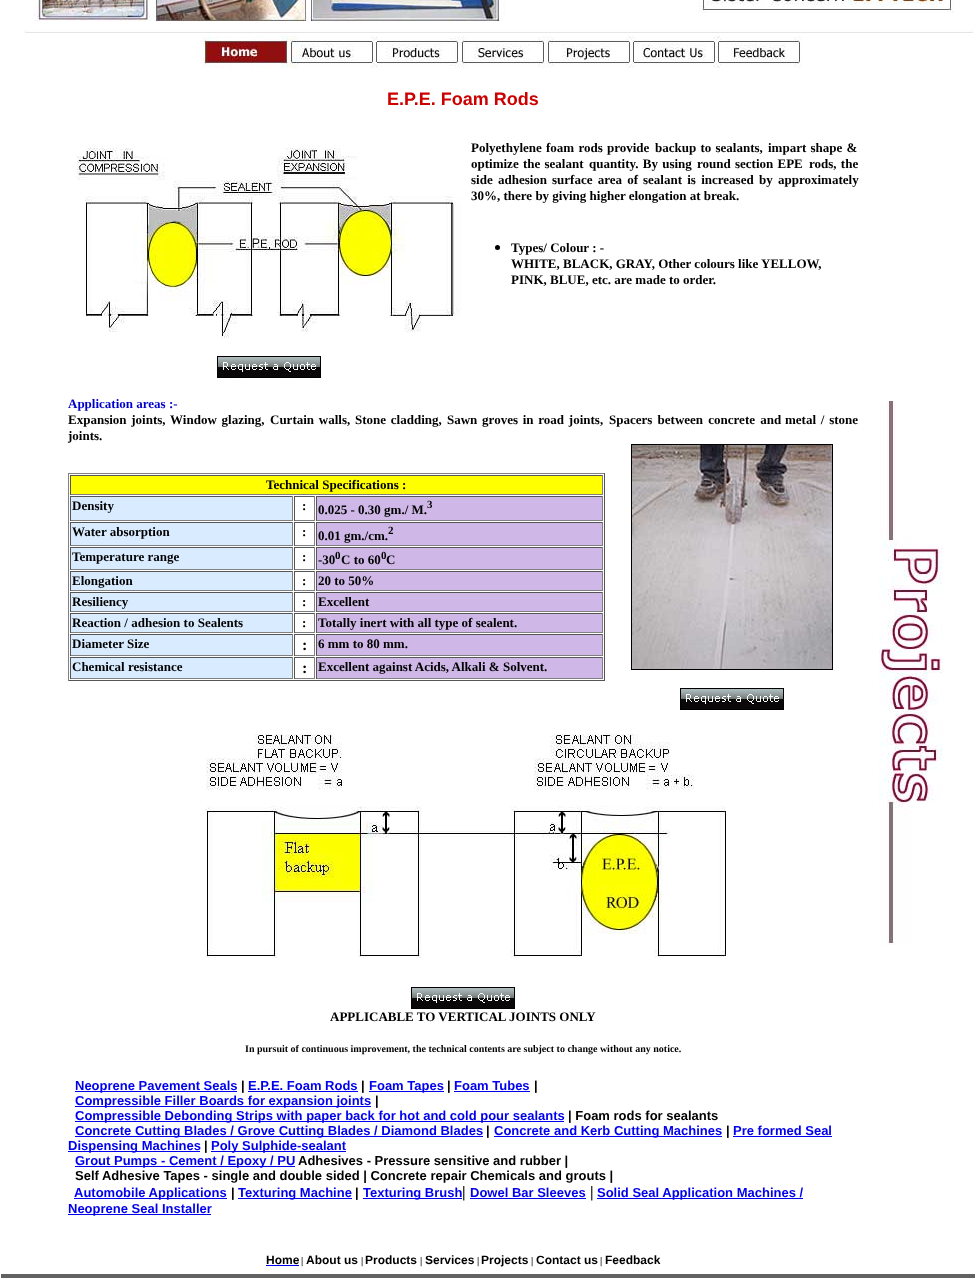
<svg xmlns="http://www.w3.org/2000/svg" width="975" height="1278" viewBox="0 0 975 1278">
  <style>
    .t1 { font: bold 18px Liberation Sans; fill: #c00; }
    .t2 { font: bold 13px Liberation Serif; fill: #000; }
    .t3 { font: bold 13px Liberation Serif; fill: #00c; }
    .t4 { font: bold 11px Liberation Serif; fill: #000; }
    .t5 { font: bold 16px Liberation Serif; fill: #000; }
    .t6 { font: bold 10px Liberation Serif; fill: #000; }
    .t7 { font: bold 13px Liberation Sans; fill: #00e; }
    .t8 { font: bold 13px Liberation Sans; fill: #000; }
    .t9 { font: bold 12px Liberation Sans; fill: #000; }
  </style>
  <rect width="100%" height="100%" fill="#fff"/>
  <image x="20" y="0" width="954" height="33" href="images/1.png"/>
  <image x="202" y="36" width="600" height="32" href="images/2.png"/>
  <text x="387" y="105" class="t1">E.P.E. Foam Rods</text>
  <image x="77" y="148" width="384" height="190" href="images/3.png"/>
  <image x="217" y="356" width="104" height="22" href="images/4.png"/>
  <text x="471" y="152" class="t2">Polyethylene</text>
  <text x="546" y="152" word-spacing="1" class="t2">foam rods provide</text>
  <text x="655" y="152" word-spacing="1" class="t2">backup to sealants,</text>
  <text x="768" y="152" word-spacing="1" class="t2">impart shape &amp;</text>
  <text x="471" y="168" word-spacing="1" class="t2">optimize the sealant</text>
  <text x="589" y="168" word-spacing="1" class="t2">quantity. By using</text>
  <text x="697" y="168" word-spacing="1" class="t2">round section EPE</text>
  <text x="809" y="168" word-spacing="1" class="t2">rods, the</text>
  <text x="471" y="184" word-spacing="2" class="t2">side adhesion</text>
  <text x="552" y="184" word-spacing="2" class="t2">surface area of</text>
  <text x="643" y="184" word-spacing="2" class="t2">sealant is increased</text>
  <text x="759" y="184" word-spacing="2" class="t2">by approximately</text>
  <text x="471" y="200" class="t2">30%, there by giving higher elongation at break.</text>
  <circle cx="497.5" cy="247.5" r="2.5" fill="#000"/>
  <text x="511" y="252" class="t2">Types/ Colour : -</text>
  <text x="511" y="268" class="t2">WHITE, BLACK, GRAY, Other colours like YELLOW,</text>
  <text x="511" y="284" class="t2">PINK, BLUE, etc. are made to order.</text>
  <text x="68" y="408" class="t3">Application areas :-</text>
  <text x="68" y="424" word-spacing="1.5" class="t2">Expansion joints, Window glazing,</text>
  <text x="270" y="424" word-spacing="1.5" class="t2">Curtain walls, Stone cladding,</text>
  <text x="447" y="424" word-spacing="1.5" class="t2">Sawn groves in road joints,</text>
  <text x="609" y="424" word-spacing="2" class="t2">Spacers between concrete and</text>
  <text x="785" y="424" word-spacing="1.5" class="t2">metal / stone</text>
  <text x="68" y="440" class="t2">joints.</text>
  <rect x="68" y="473" width="537" height="1" fill="#808080"/>
  <rect x="604" y="473" width="1" height="208" fill="#555"/>
  <rect x="68" y="680" width="537" height="1" fill="#555"/>
  <rect x="68" y="473" width="1" height="208" fill="#808080"/>
  <rect x="71" y="476" width="531" height="18" fill="#ff0"/>
  <rect x="70" y="475" width="533" height="1" fill="#555"/>
  <rect x="602" y="475" width="1" height="20" fill="#808080"/>
  <rect x="70" y="494" width="533" height="1" fill="#808080"/>
  <rect x="70" y="475" width="1" height="20" fill="#555"/>
  <text x="266" y="489" class="t2">Technical Specifications :</text>
  <rect x="71" y="497" width="221" height="23" fill="#d9ecff"/>
  <rect x="70" y="496" width="223" height="1" fill="#555"/>
  <rect x="292" y="496" width="1" height="25" fill="#808080"/>
  <rect x="70" y="520" width="223" height="1" fill="#808080"/>
  <rect x="70" y="496" width="1" height="25" fill="#555"/>
  <text x="72" y="510" class="t2">Density</text>
  <rect x="294" y="496" width="21" height="1" fill="#555"/>
  <rect x="314" y="496" width="1" height="25" fill="#808080"/>
  <rect x="294" y="520" width="21" height="1" fill="#808080"/>
  <rect x="294" y="496" width="1" height="25" fill="#555"/>
  <text x="302" y="510" class="t2">:</text>
  <rect x="317" y="497" width="285" height="23" fill="#cfb8e7"/>
  <rect x="316" y="496" width="287" height="1" fill="#555"/>
  <rect x="602" y="496" width="1" height="25" fill="#808080"/>
  <rect x="316" y="520" width="287" height="1" fill="#808080"/>
  <rect x="316" y="496" width="1" height="25" fill="#555"/>
  <text x="318" y="514" class="t2">0.025 - 0.30 gm./ M.</text>
  <text x="427" y="508" class="t4">3</text>
  <rect x="71" y="523" width="221" height="22" fill="#d9ecff"/>
  <rect x="70" y="522" width="223" height="1" fill="#555"/>
  <rect x="292" y="522" width="1" height="24" fill="#808080"/>
  <rect x="70" y="545" width="223" height="1" fill="#808080"/>
  <rect x="70" y="522" width="1" height="24" fill="#555"/>
  <text x="72" y="536" class="t2">Water absorption</text>
  <rect x="294" y="522" width="21" height="1" fill="#555"/>
  <rect x="314" y="522" width="1" height="24" fill="#808080"/>
  <rect x="294" y="545" width="21" height="1" fill="#808080"/>
  <rect x="294" y="522" width="1" height="24" fill="#555"/>
  <text x="302" y="536" class="t2">:</text>
  <rect x="317" y="523" width="285" height="22" fill="#cfb8e7"/>
  <rect x="316" y="522" width="287" height="1" fill="#555"/>
  <rect x="602" y="522" width="1" height="24" fill="#808080"/>
  <rect x="316" y="545" width="287" height="1" fill="#808080"/>
  <rect x="316" y="522" width="1" height="24" fill="#555"/>
  <text x="388" y="534" class="t4">2</text>
  <text x="318" y="540" class="t2">0.01 gm./cm.</text>
  <rect x="71" y="548" width="221" height="21" fill="#d9ecff"/>
  <rect x="70" y="547" width="223" height="1" fill="#555"/>
  <rect x="292" y="547" width="1" height="23" fill="#808080"/>
  <rect x="70" y="569" width="223" height="1" fill="#808080"/>
  <rect x="70" y="547" width="1" height="23" fill="#555"/>
  <text x="72" y="561" class="t2">Temperature range</text>
  <rect x="294" y="547" width="21" height="1" fill="#555"/>
  <rect x="314" y="547" width="1" height="23" fill="#808080"/>
  <rect x="294" y="569" width="21" height="1" fill="#808080"/>
  <rect x="294" y="547" width="1" height="23" fill="#555"/>
  <text x="302" y="561" class="t2">:</text>
  <rect x="317" y="548" width="285" height="21" fill="#cfb8e7"/>
  <rect x="316" y="547" width="287" height="1" fill="#555"/>
  <rect x="602" y="547" width="1" height="23" fill="#808080"/>
  <rect x="316" y="569" width="287" height="1" fill="#808080"/>
  <rect x="316" y="547" width="1" height="23" fill="#555"/>
  <text x="318" y="564" class="t2">-30</text>
  <text x="335" y="559" class="t4">0</text>
  <text x="341" y="564" class="t2">C to 60</text>
  <text x="381" y="559" class="t4">0</text>
  <text x="386" y="564" class="t2">C</text>
  <rect x="71" y="572" width="221" height="18" fill="#d9ecff"/>
  <rect x="70" y="571" width="223" height="1" fill="#555"/>
  <rect x="292" y="571" width="1" height="20" fill="#808080"/>
  <rect x="70" y="590" width="223" height="1" fill="#808080"/>
  <rect x="70" y="571" width="1" height="20" fill="#555"/>
  <text x="72" y="585" class="t2">Elongation</text>
  <rect x="294" y="571" width="21" height="1" fill="#555"/>
  <rect x="314" y="571" width="1" height="20" fill="#808080"/>
  <rect x="294" y="590" width="21" height="1" fill="#808080"/>
  <rect x="294" y="571" width="1" height="20" fill="#555"/>
  <text x="302" y="585" class="t2">:</text>
  <rect x="317" y="572" width="285" height="18" fill="#cfb8e7"/>
  <rect x="316" y="571" width="287" height="1" fill="#555"/>
  <rect x="602" y="571" width="1" height="20" fill="#808080"/>
  <rect x="316" y="590" width="287" height="1" fill="#808080"/>
  <rect x="316" y="571" width="1" height="20" fill="#555"/>
  <text x="318" y="585" class="t2">20 to 50%</text>
  <rect x="71" y="593" width="221" height="18" fill="#d9ecff"/>
  <rect x="70" y="592" width="223" height="1" fill="#555"/>
  <rect x="292" y="592" width="1" height="20" fill="#808080"/>
  <rect x="70" y="611" width="223" height="1" fill="#808080"/>
  <rect x="70" y="592" width="1" height="20" fill="#555"/>
  <text x="72" y="606" class="t2">Resiliency</text>
  <rect x="294" y="592" width="21" height="1" fill="#555"/>
  <rect x="314" y="592" width="1" height="20" fill="#808080"/>
  <rect x="294" y="611" width="21" height="1" fill="#808080"/>
  <rect x="294" y="592" width="1" height="20" fill="#555"/>
  <text x="302" y="606" class="t2">:</text>
  <rect x="317" y="593" width="285" height="18" fill="#cfb8e7"/>
  <rect x="316" y="592" width="287" height="1" fill="#555"/>
  <rect x="602" y="592" width="1" height="20" fill="#808080"/>
  <rect x="316" y="611" width="287" height="1" fill="#808080"/>
  <rect x="316" y="592" width="1" height="20" fill="#555"/>
  <text x="318" y="606" class="t2">Excellent</text>
  <rect x="71" y="614" width="221" height="18" fill="#d9ecff"/>
  <rect x="70" y="613" width="223" height="1" fill="#555"/>
  <rect x="292" y="613" width="1" height="20" fill="#808080"/>
  <rect x="70" y="632" width="223" height="1" fill="#808080"/>
  <rect x="70" y="613" width="1" height="20" fill="#555"/>
  <text x="72" y="627" class="t2">Reaction / adhesion to Sealents</text>
  <rect x="294" y="613" width="21" height="1" fill="#555"/>
  <rect x="314" y="613" width="1" height="20" fill="#808080"/>
  <rect x="294" y="632" width="21" height="1" fill="#808080"/>
  <rect x="294" y="613" width="1" height="20" fill="#555"/>
  <text x="302" y="627" class="t2">:</text>
  <rect x="317" y="614" width="285" height="18" fill="#cfb8e7"/>
  <rect x="316" y="613" width="287" height="1" fill="#555"/>
  <rect x="602" y="613" width="1" height="20" fill="#808080"/>
  <rect x="316" y="632" width="287" height="1" fill="#808080"/>
  <rect x="316" y="613" width="1" height="20" fill="#555"/>
  <text x="318" y="627" class="t2">Totally inert with all type of sealent.</text>
  <rect x="71" y="635" width="221" height="20" fill="#d9ecff"/>
  <rect x="70" y="634" width="223" height="1" fill="#555"/>
  <rect x="292" y="634" width="1" height="22" fill="#808080"/>
  <rect x="70" y="655" width="223" height="1" fill="#808080"/>
  <rect x="70" y="634" width="1" height="22" fill="#555"/>
  <text x="72" y="648" class="t2">Diameter Size</text>
  <rect x="294" y="634" width="21" height="1" fill="#555"/>
  <rect x="314" y="634" width="1" height="22" fill="#808080"/>
  <rect x="294" y="655" width="21" height="1" fill="#808080"/>
  <rect x="294" y="634" width="1" height="22" fill="#555"/>
  <text x="302" y="650" class="t5">:</text>
  <rect x="317" y="635" width="285" height="20" fill="#cfb8e7"/>
  <rect x="316" y="634" width="287" height="1" fill="#555"/>
  <rect x="602" y="634" width="1" height="22" fill="#808080"/>
  <rect x="316" y="655" width="287" height="1" fill="#808080"/>
  <rect x="316" y="634" width="1" height="22" fill="#555"/>
  <text x="318" y="648" class="t2">6 mm to 80 mm.</text>
  <rect x="71" y="658" width="221" height="20" fill="#d9ecff"/>
  <rect x="70" y="657" width="223" height="1" fill="#555"/>
  <rect x="292" y="657" width="1" height="22" fill="#808080"/>
  <rect x="70" y="678" width="223" height="1" fill="#808080"/>
  <rect x="70" y="657" width="1" height="22" fill="#555"/>
  <text x="72" y="671" class="t2">Chemical resistance</text>
  <rect x="294" y="657" width="21" height="1" fill="#555"/>
  <rect x="314" y="657" width="1" height="22" fill="#808080"/>
  <rect x="294" y="678" width="21" height="1" fill="#808080"/>
  <rect x="294" y="657" width="1" height="22" fill="#555"/>
  <text x="302" y="673" class="t5">:</text>
  <rect x="317" y="658" width="285" height="20" fill="#cfb8e7"/>
  <rect x="316" y="657" width="287" height="1" fill="#555"/>
  <rect x="602" y="657" width="1" height="22" fill="#808080"/>
  <rect x="316" y="678" width="287" height="1" fill="#808080"/>
  <rect x="316" y="657" width="1" height="22" fill="#555"/>
  <text x="318" y="671" class="t2">Excellent against Acids, Alkali &amp; Solvent.</text>
  <rect x="631.5" y="444.5" width="201" height="225" fill="none" stroke="#000"/>
  <image x="632" y="445" width="200" height="224" href="images/5.png"/>
  <image x="680" y="688" width="104" height="22" href="images/4.png"/>
  <image x="206" y="734" width="520" height="224" href="images/6.png"/>
  <image x="411" y="987" width="104" height="22" href="images/4.png"/>
  <text x="330" y="1021" class="t2">APPLICABLE TO VERTICAL JOINTS ONLY</text>
  <text x="245" y="1052" class="t6">In pursuit of continuous improvement, the technical contents are subject to change without any notice.</text>
  <rect x="75" y="1091" width="162" height="1" fill="#00e"/>
  <text x="75" y="1090" class="t7">Neoprene Pavement Seals</text>
  <text x="241" y="1090" class="t8">|</text>
  <text x="248" y="1090" class="t7">E.P.E. Foam Rods</text>
  <rect x="248" y="1091" width="110" height="1" fill="#00e"/>
  <text x="361" y="1090" class="t8">|</text>
  <rect x="369" y="1091" width="75" height="1" fill="#00e"/>
  <text x="369" y="1090" class="t7">Foam Tapes</text>
  <text x="447" y="1090" class="t8">|</text>
  <text x="454" y="1090" class="t7">Foam Tubes</text>
  <rect x="454" y="1091" width="76" height="1" fill="#00e"/>
  <text x="534" y="1090" class="t8">|</text>
  <rect x="75" y="1106" width="296" height="1" fill="#00e"/>
  <text x="75" y="1105" class="t7">Compressible Filler Boards for expansion joints</text>
  <text x="375" y="1105" class="t8">|</text>
  <rect x="75" y="1121" width="489" height="1" fill="#00e"/>
  <text x="75" y="1120" class="t7">Compressible Debonding Strips with paper back for hot and cold pour sealants</text>
  <text x="568" y="1120" class="t8">| Foam rods for sealants</text>
  <rect x="75" y="1136" width="408" height="1" fill="#00e"/>
  <text x="75" y="1135" class="t7">Concrete Cutting Blades / Grove Cutting Blades / Diamond Blades</text>
  <text x="486" y="1135" class="t8">|</text>
  <rect x="494" y="1136" width="228" height="1" fill="#00e"/>
  <text x="494" y="1135" class="t7">Concrete and Kerb Cutting Machines</text>
  <text x="726" y="1135" class="t8">|</text>
  <text x="733" y="1135" class="t7">Pre formed Seal</text>
  <rect x="733" y="1136" width="99" height="1" fill="#00e"/>
  <rect x="68" y="1151" width="132" height="1" fill="#00e"/>
  <text x="68" y="1150" class="t7">Dispensing Machines</text>
  <text x="204" y="1150" class="t8">|</text>
  <rect x="211" y="1151" width="135" height="1" fill="#00e"/>
  <text x="211" y="1150" class="t7">Poly Sulphide-sealant</text>
  <rect x="75" y="1166" width="220" height="1" fill="#00e"/>
  <text x="75" y="1165" class="t7">Grout Pumps - Cement / Epoxy / PU</text>
  <text x="298" y="1165" class="t8">Adhesives - Pressure sensitive and rubber |</text>
  <text x="75" y="1180" class="t8">Self Adhesive Tapes - single and double sided | Concrete repair Chemicals and grouts |</text>
  <rect x="74" y="1198" width="153" height="1" fill="#00e"/>
  <text x="74" y="1197" class="t7">Automobile Applications</text>
  <text x="231" y="1197" class="t8">|</text>
  <rect x="238" y="1198" width="114" height="1" fill="#00e"/>
  <text x="238" y="1197" class="t7">Texturing Machine</text>
  <text x="355" y="1197" class="t8">|</text>
  <rect x="363" y="1198" width="99" height="1" fill="#00e"/>
  <text x="363" y="1197" class="t7">Texturing Brush</text>
  <text x="462" y="1197" class="t5">|</text>
  <text x="470" y="1197" class="t7">Dowel Bar Sleeves</text>
  <rect x="470" y="1198" width="116" height="1" fill="#00e"/>
  <text x="590" y="1197" class="t5">|</text>
  <rect x="597" y="1198" width="206" height="1" fill="#00e"/>
  <text x="597" y="1197" class="t7">Solid Seal Application Machines /</text>
  <rect x="68" y="1214" width="143" height="1" fill="#00e"/>
  <text x="68" y="1213" class="t7">Neoprene Seal Installer</text>
  <text x="266" y="1264" class="t9">Home</text>
  <rect x="266" y="1265" width="33" height="1" fill="#00e"/>
  <text x="301" y="1264" class="t6">|</text>
  <text x="306" y="1264" class="t9">About us</text>
  <text x="361" y="1264" class="t6">|</text>
  <text x="365" y="1264" class="t9">Products</text>
  <text x="420" y="1264" class="t6">|</text>
  <text x="425" y="1264" class="t9">Services</text>
  <text x="477" y="1264" class="t6">|</text>
  <text x="481" y="1264" class="t9">Projects</text>
  <text x="531" y="1264" class="t6">|</text>
  <text x="536" y="1264" class="t9">Contact us</text>
  <text x="600" y="1264" class="t6">|</text>
  <text x="605" y="1264" class="t9">Feedback</text>
  <image x="879" y="401" width="64" height="544" href="images/7.png"/>
  <rect x="1" y="1274" width="974" height="4" fill="#626262"/>
</svg>
